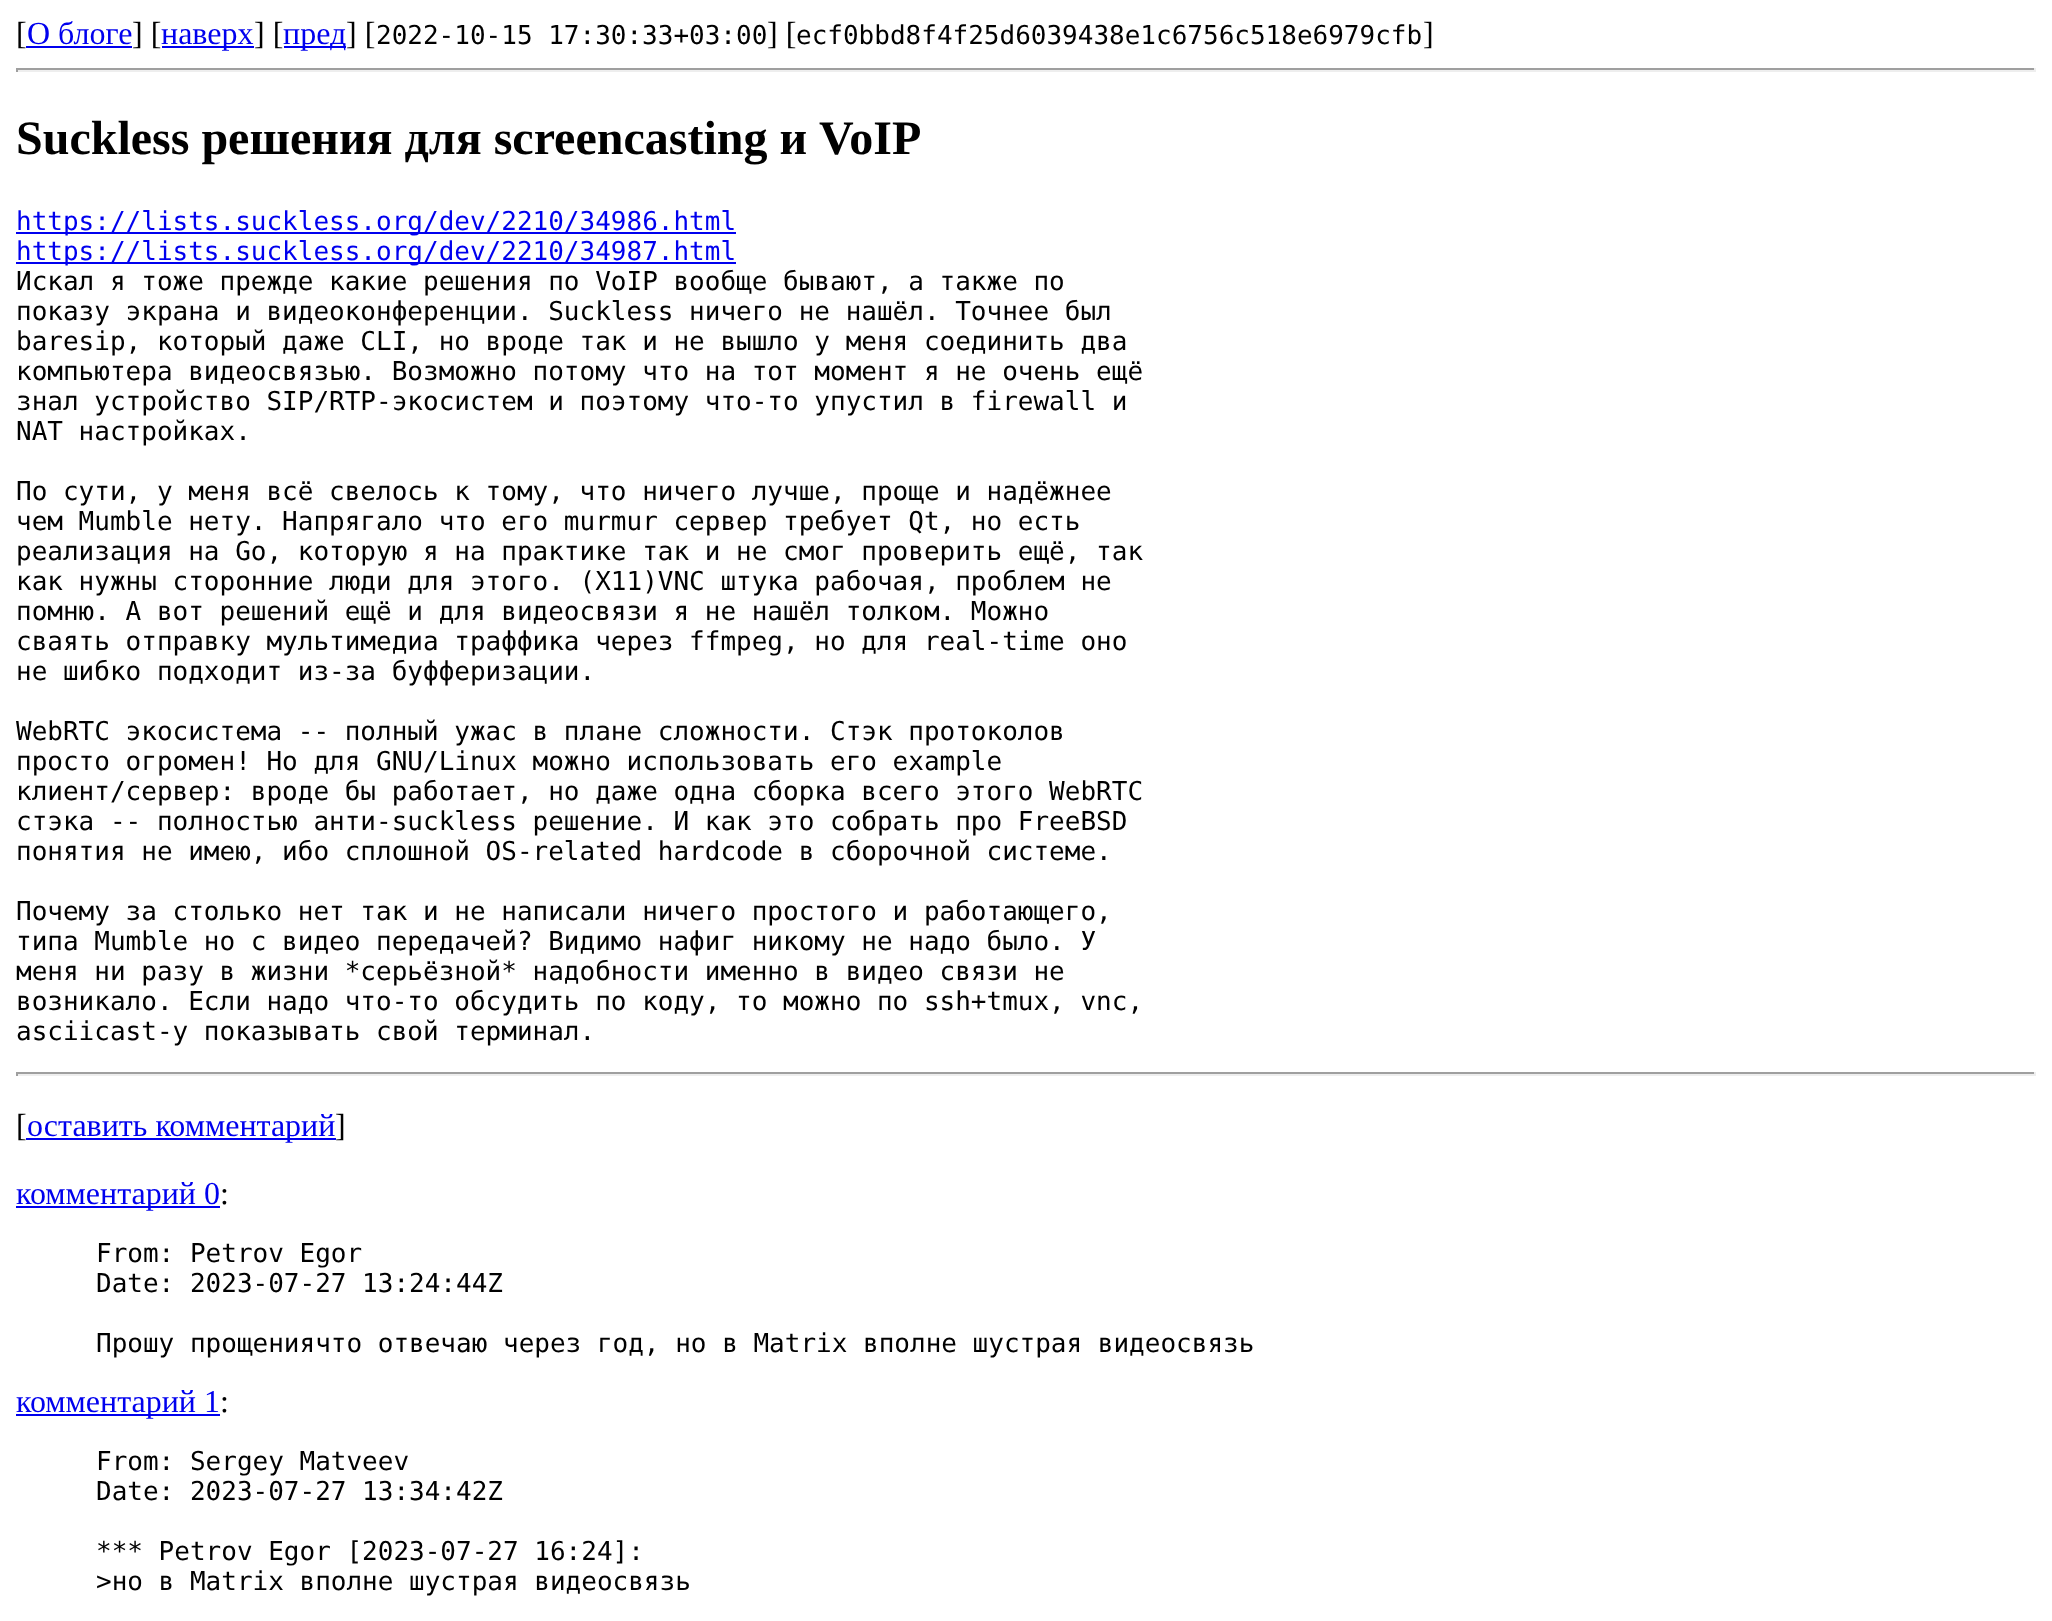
<svg xmlns="http://www.w3.org/2000/svg" width="2052" height="1621" viewBox="0 0 2052 1621">
  <style>
    .t1 { font: 32px Liberation Serif; fill: #000; }
    .t2 { font: 32px Liberation Serif; fill: #00e; }
    .t3 { font: 26px DejaVu Sans Mono; fill: #000; }
    .t4 { font: bold 48px Liberation Serif; fill: #000; }
    .t5 { font: 26px DejaVu Sans Mono; fill: #00e; }
  </style>
  <rect width="100%" height="100%" fill="#fff"/>
  <text x="16" y="44" class="t1">[</text>
  <text x="27" y="44" class="t2">О блоге</text>
  <rect x="26" y="46" width="106" height="2" fill="#00e"/>
  <text x="132" y="44" class="t1">] [</text>
  <rect x="162" y="46" width="92" height="2" fill="#00e"/>
  <text x="161" y="44" class="t2">наверх</text>
  <text x="254" y="44" class="t1">] [</text>
  <rect x="284" y="46" width="62" height="2" fill="#00e"/>
  <text x="283" y="44" class="t2">пред</text>
  <text x="346" y="44" class="t1">] [</text>
  <text x="376" y="44" class="t3">2022-10-15 17:30:33+03:00</text>
  <text x="767" y="44" class="t1">] [</text>
  <text x="796" y="44" class="t3">ecf0bbd8f4f25d6039438e1c6756c518e6979cfb</text>
  <text x="1423" y="44" class="t1">]</text>
  <rect x="16" y="68" width="2020" height="2" fill="#9f9f9f"/>
  <rect x="2034" y="68" width="2" height="4" fill="#eee"/>
  <rect x="16" y="70" width="2020" height="2" fill="#eee"/>
  <rect x="16" y="68" width="2" height="4" fill="#9f9f9f"/>
  <text x="16" y="154" class="t4">Suckless решения для screencasting и VoIP</text>
  <rect x="16" y="232" width="720" height="2" fill="#00e"/>
  <text x="16" y="230" class="t5">https://lists.suckless.org/dev/2210/34986.html</text>
  <rect x="16" y="262" width="720" height="2" fill="#00e"/>
  <text x="16" y="260" class="t5">https://lists.suckless.org/dev/2210/34987.html</text>
  <text x="16" y="290" class="t3">Искал я тоже прежде какие решения по VoIP вообще бывают, а также по</text>
  <text x="16" y="320" class="t3">показу экрана и видеоконференции. Suckless ничего не нашёл. Точнее был</text>
  <text x="16" y="350" class="t3">baresip, который даже CLI, но вроде так и не вышло у меня соединить два</text>
  <text x="16" y="380" class="t3">компьютера видеосвязью. Возможно потому что на тот момент я не очень ещё</text>
  <text x="16" y="410" class="t3">знал устройство SIP/RTP-экосистем и поэтому что-то упустил в firewall и</text>
  <text x="16" y="440" class="t3">NAT настройках.</text>
  <text x="16" y="500" class="t3">По сути, у меня всё свелось к тому, что ничего лучше, проще и надёжнее</text>
  <text x="16" y="530" class="t3">чем Mumble нету. Напрягало что его murmur сервер требует Qt, но есть</text>
  <text x="16" y="560" class="t3">реализация на Go, которую я на практике так и не смог проверить ещё, так</text>
  <text x="16" y="590" class="t3">как нужны сторонние люди для этого. (X11)VNC штука рабочая, проблем не</text>
  <text x="16" y="620" class="t3">помню. А вот решений ещё и для видеосвязи я не нашёл толком. Можно</text>
  <text x="16" y="650" class="t3">сваять отправку мультимедиа траффика через ffmpeg, но для real-time оно</text>
  <text x="16" y="680" class="t3">не шибко подходит из-за буфферизации.</text>
  <text x="16" y="740" class="t3">WebRTC экосистема -- полный ужас в плане сложности. Стэк протоколов</text>
  <text x="16" y="770" class="t3">просто огромен! Но для GNU/Linux можно использовать его example</text>
  <text x="16" y="800" class="t3">клиент/сервер: вроде бы работает, но даже одна сборка всего этого WebRTC</text>
  <text x="16" y="830" class="t3">стэка -- полностью анти-suckless решение. И как это собрать про FreeBSD</text>
  <text x="16" y="860" class="t3">понятия не имею, ибо сплошной OS-related hardcode в сборочной системе.</text>
  <text x="16" y="920" class="t3">Почему за столько нет так и не написали ничего простого и работающего,</text>
  <text x="16" y="950" class="t3">типа Mumble но с видео передачей? Видимо нафиг никому не надо было. У</text>
  <text x="16" y="980" class="t3">меня ни разу в жизни *серьёзной* надобности именно в видео связи не</text>
  <text x="16" y="1010" class="t3">возникало. Если надо что-то обсудить по коду, то можно по ssh+tmux, vnc,</text>
  <text x="16" y="1040" class="t3">asciicast-у показывать свой терминал.</text>
  <rect x="16" y="1072" width="2020" height="2" fill="#9f9f9f"/>
  <rect x="2034" y="1072" width="2" height="4" fill="#eee"/>
  <rect x="16" y="1074" width="2020" height="2" fill="#eee"/>
  <rect x="16" y="1072" width="2" height="4" fill="#9f9f9f"/>
  <text x="16" y="1136" class="t1">[</text>
  <rect x="26" y="1138" width="310" height="2" fill="#00e"/>
  <text x="27" y="1136" class="t2">оставить комментарий</text>
  <text x="335" y="1136" class="t1">]</text>
  <rect x="16" y="1206" width="204" height="2" fill="#00e"/>
  <text x="16" y="1204" class="t2">комментарий 0</text>
  <text x="220" y="1204" class="t1">:</text>
  <text x="96" y="1262" class="t3">From: Petrov Egor</text>
  <text x="96" y="1292" class="t3">Date: 2023-07-27 13:24:44Z</text>
  <text x="96" y="1352" class="t3">Прошу прощениячто отвечаю через год, но в Matrix вполне шустрая видеосвязь</text>
  <rect x="16" y="1414" width="204" height="2" fill="#00e"/>
  <text x="16" y="1412" class="t2">комментарий 1</text>
  <text x="220" y="1412" class="t1">:</text>
  <text x="96" y="1470" class="t3">From: Sergey Matveev</text>
  <text x="96" y="1500" class="t3">Date: 2023-07-27 13:34:42Z</text>
  <text x="96" y="1560" class="t3">*** Petrov Egor [2023-07-27 16:24]:</text>
  <text x="96" y="1590" class="t3">&gt;но в Matrix вполне шустрая видеосвязь</text>
</svg>
